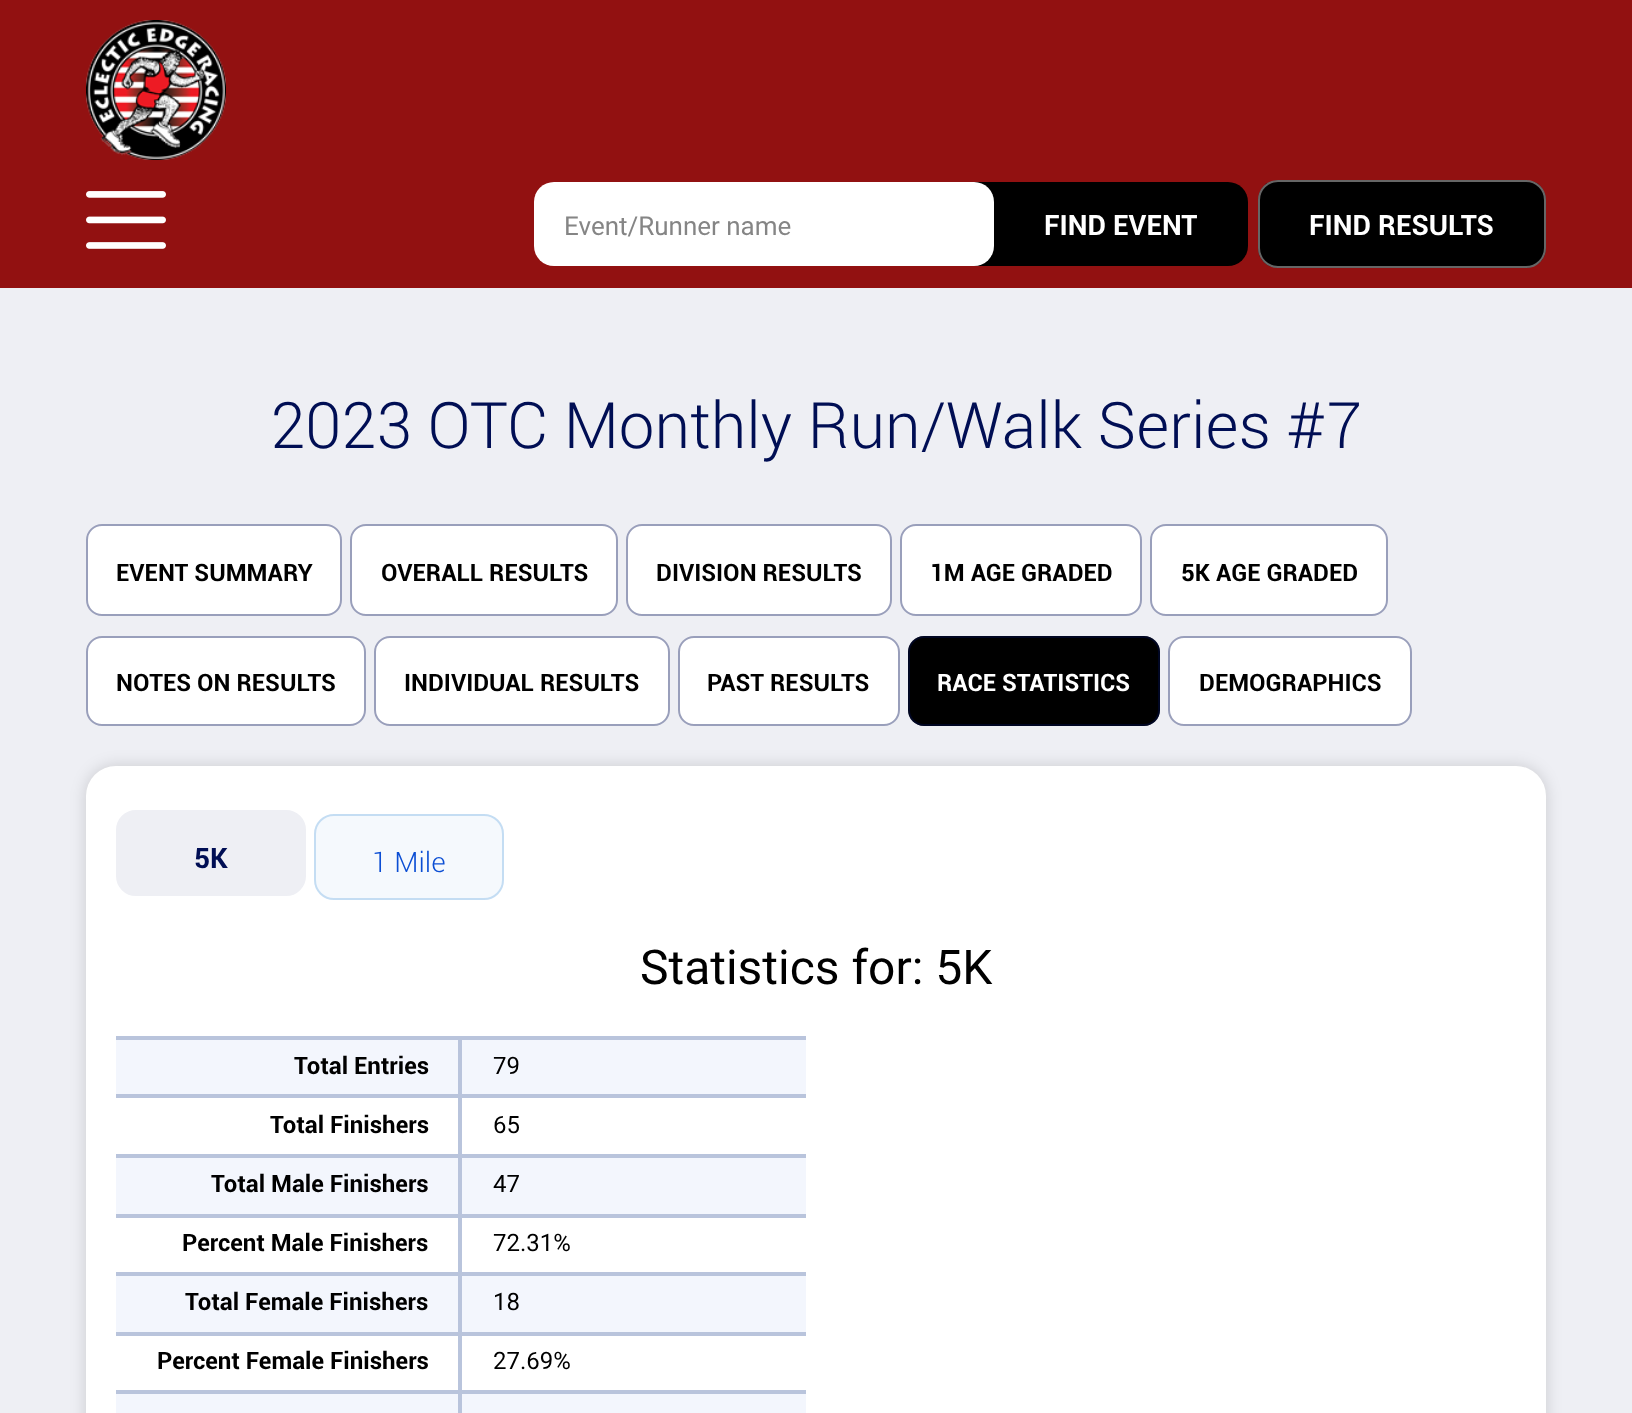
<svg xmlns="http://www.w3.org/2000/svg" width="1632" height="1413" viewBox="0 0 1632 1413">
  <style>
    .t1 { font: 26px Roboto; fill: #858585; }
    .t2 { font: bold 28px Roboto; fill: #fff; }
    .t3 { font: 300 64px Roboto; fill: #000e54; }
    .t4 { font: bold 24px Roboto; fill: #000; }
    .t5 { font: bold 24px Roboto; fill: #fff; }
    .t6 { font: bold 28px Roboto; fill: #000e54; }
    .t7 { font: 300 28px Roboto; fill: #0b4ed4; }
    .t8 { font: 48px Roboto; fill: #000; }
    .t9 { font: 24px Roboto; fill: #000; }
  </style>
  <rect width="100%" height="100%" fill="#eeeff4"/>
  <rect x="0" y="0" width="1632" height="288" fill="#921111"/>
  <image x="86" y="20" width="140" height="140" href="images/1.png"/>
  <image x="86" y="191" width="80" height="58" href="images/2.png"/>
  <rect x="974" y="182" width="40" height="84" fill="#000"/>
  <rect x="534" y="182" width="460" height="84" rx="20" fill="#fff"/>
  <text x="564" y="235" class="t1">Event/Runner name</text>
  <rect x="994" y="182" width="254" height="84" rx="20" fill="#000"/>
  <text x="1044" y="235" class="t2">FIND EVENT</text>
  <rect x="1258" y="180" width="288" height="88" rx="20" fill="#000"/>
  <rect x="1259" y="181" width="286" height="86" rx="19" fill="none" stroke="#ffffff66" stroke-width="2"/>
  <text x="1309" y="235" class="t2">FIND RESULTS</text>
  <text x="270" y="448" class="t3">2023 OTC Monthly Run/Walk Series #7</text>
  <rect x="86" y="524" width="256" height="92" rx="16" fill="#fff"/>
  <rect x="87" y="525" width="254" height="90" rx="15" fill="none" stroke="#000e5466" stroke-width="2"/>
  <text x="116" y="581" class="t4">EVENT SUMMARY</text>
  <rect x="350" y="524" width="268" height="92" rx="16" fill="#fff"/>
  <rect x="351" y="525" width="266" height="90" rx="15" fill="none" stroke="#000e5466" stroke-width="2"/>
  <text x="381" y="581" class="t4">OVERALL RESULTS</text>
  <rect x="626" y="524" width="266" height="92" rx="16" fill="#fff"/>
  <rect x="627" y="525" width="264" height="90" rx="15" fill="none" stroke="#000e5466" stroke-width="2"/>
  <text x="656" y="581" class="t4">DIVISION RESULTS</text>
  <rect x="900" y="524" width="242" height="92" rx="16" fill="#fff"/>
  <rect x="901" y="525" width="240" height="90" rx="15" fill="none" stroke="#000e5466" stroke-width="2"/>
  <text x="930" y="581" class="t4">1M AGE GRADED</text>
  <rect x="1150" y="524" width="238" height="92" rx="16" fill="#fff"/>
  <rect x="1151" y="525" width="236" height="90" rx="15" fill="none" stroke="#000e5466" stroke-width="2"/>
  <text x="1181" y="581" class="t4">5K AGE GRADED</text>
  <rect x="86" y="636" width="280" height="90" rx="16" fill="#fff"/>
  <rect x="87" y="637" width="278" height="88" rx="15" fill="none" stroke="#000e5466" stroke-width="2"/>
  <text x="116" y="691" class="t4">NOTES ON RESULTS</text>
  <rect x="374" y="636" width="296" height="90" rx="16" fill="#fff"/>
  <rect x="375" y="637" width="294" height="88" rx="15" fill="none" stroke="#000e5466" stroke-width="2"/>
  <text x="404" y="691" class="t4">INDIVIDUAL RESULTS</text>
  <rect x="678" y="636" width="222" height="90" rx="16" fill="#fff"/>
  <rect x="679" y="637" width="220" height="88" rx="15" fill="none" stroke="#000e5466" stroke-width="2"/>
  <text x="707" y="691" class="t4">PAST RESULTS</text>
  <rect x="908" y="636" width="252" height="90" rx="16" fill="#000"/>
  <rect x="909" y="637" width="250" height="88" rx="15" fill="none" stroke="#000e5466" stroke-width="2"/>
  <text x="937" y="691" class="t5">RACE STATISTICS</text>
  <rect x="1168" y="636" width="244" height="90" rx="16" fill="#fff"/>
  <rect x="1169" y="637" width="242" height="88" rx="15" fill="none" stroke="#000e5466" stroke-width="2"/>
  <text x="1199" y="691" class="t4">DEMOGRAPHICS</text>
  <rect x="86" y="766" width="1460" height="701" rx="30" fill="#00000026" filter="blur(8px)"/>
  <rect x="86" y="766" width="1460" height="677" rx="30" fill="#fff"/>
  <rect x="117" y="811" width="188" height="84" rx="19" fill="#eeeff4" stroke="#eeeff4" stroke-width="2"/>
  <text x="194" y="868" class="t6">5K</text>
  <rect x="314" y="814" width="190" height="86" rx="20" fill="#f5f9fd"/>
  <rect x="315" y="815" width="188" height="84" rx="19" fill="none" stroke="#006ccb33" stroke-width="2"/>
  <text x="372" y="872" class="t7">1 Mile</text>
  <text x="640" y="984" class="t8">Statistics for: 5K</text>
  <rect x="116" y="1036" width="690" height="4" fill="#b9c4dc"/>
  <rect x="116" y="1040" width="690" height="54" fill="#f3f6fd"/>
  <rect x="116" y="1094" width="690" height="4" fill="#b9c4dc"/>
  <rect x="458" y="1040" width="4" height="54" fill="#b9c4dc"/>
  <text x="294" y="1074" class="t4">Total Entries</text>
  <text x="493" y="1074" class="t9">79</text>
  <rect x="116" y="1154" width="690" height="4" fill="#b9c4dc"/>
  <rect x="458" y="1098" width="4" height="56" fill="#b9c4dc"/>
  <text x="270" y="1133" class="t4">Total Finishers</text>
  <text x="493" y="1133" class="t9">65</text>
  <rect x="116" y="1158" width="690" height="56" fill="#f3f6fd"/>
  <rect x="116" y="1214" width="690" height="4" fill="#b9c4dc"/>
  <rect x="458" y="1158" width="4" height="56" fill="#b9c4dc"/>
  <text x="211" y="1192" class="t4">Total Male Finishers</text>
  <text x="493" y="1192" class="t9">47</text>
  <rect x="116" y="1272" width="690" height="4" fill="#b9c4dc"/>
  <rect x="458" y="1218" width="4" height="54" fill="#b9c4dc"/>
  <text x="182" y="1251" class="t4">Percent Male Finishers</text>
  <text x="493" y="1251" class="t9">72.31%</text>
  <rect x="116" y="1276" width="690" height="56" fill="#f3f6fd"/>
  <rect x="116" y="1332" width="690" height="4" fill="#b9c4dc"/>
  <rect x="458" y="1276" width="4" height="56" fill="#b9c4dc"/>
  <text x="185" y="1310" class="t4">Total Female Finishers</text>
  <text x="493" y="1310" class="t9">18</text>
  <rect x="116" y="1390" width="690" height="4" fill="#b9c4dc"/>
  <rect x="458" y="1336" width="4" height="54" fill="#b9c4dc"/>
  <text x="157" y="1369" class="t4">Percent Female Finishers</text>
  <text x="493" y="1369" class="t9">27.69%</text>
  <rect x="116" y="1394" width="690" height="19" fill="#f3f6fd"/>
  <rect x="458" y="1394" width="4" height="19" fill="#b9c4dc"/>
</svg>
